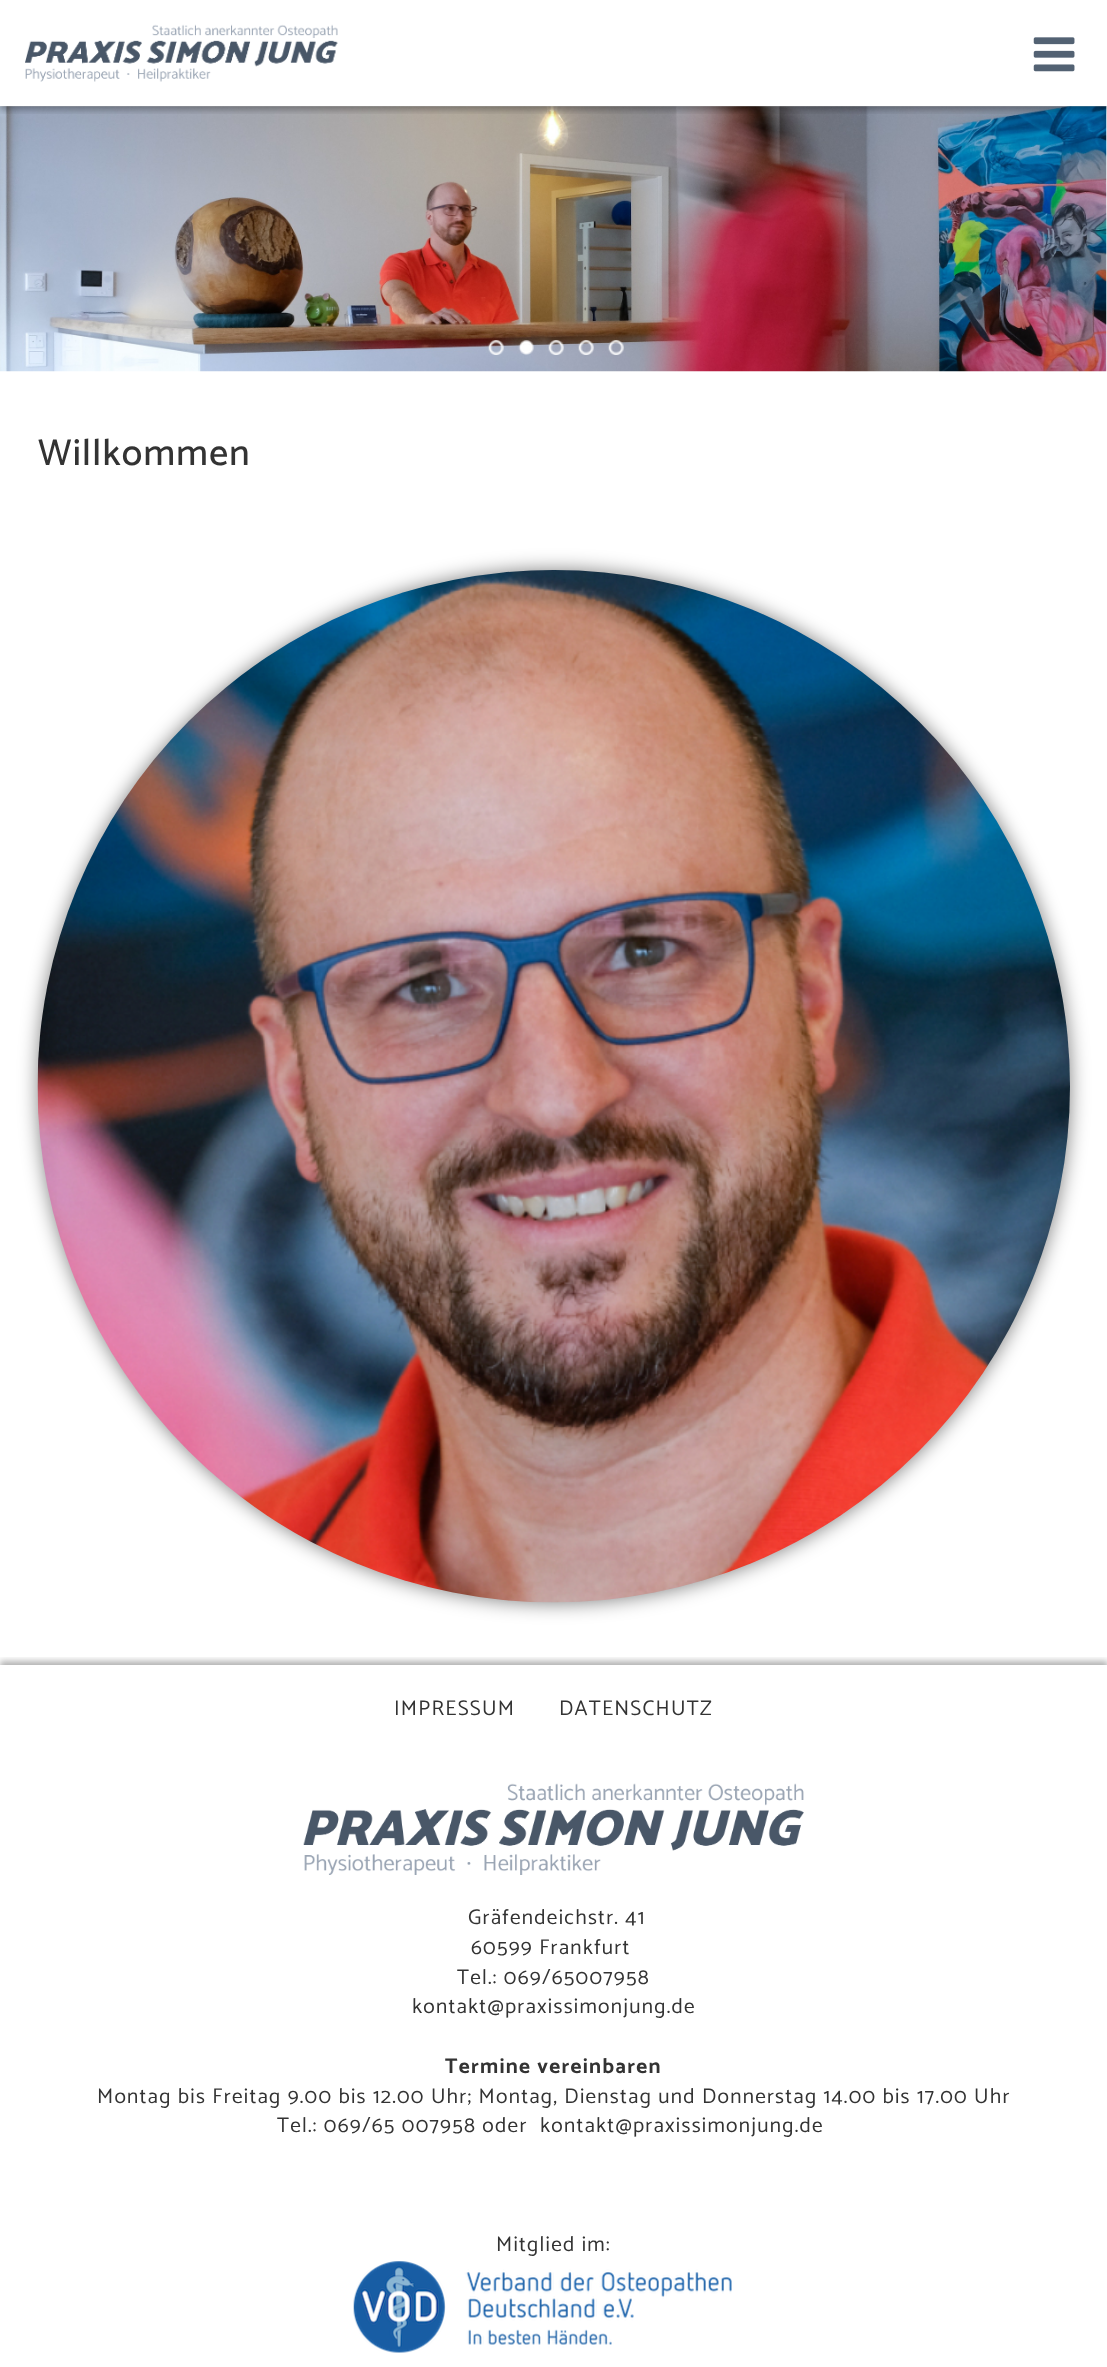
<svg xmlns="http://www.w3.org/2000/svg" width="1107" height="2367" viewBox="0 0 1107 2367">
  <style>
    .t1 { font: 100 37.5px Catamaran; letter-spacing: 1.25px; fill: #333; }
    .t2 { font: 100 21.25px 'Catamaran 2'; letter-spacing: 1.25px; fill: #333; }
    .t3 { font: 100 21.25px 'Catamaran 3'; letter-spacing: 1.25px; fill: #333; }
  </style>
  <defs>
    <clipPath id="clip1"><rect x="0" y="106" width="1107" height="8"/></clipPath>
    <clipPath id="clip2"><rect x="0" y="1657" width="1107" height="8"/></clipPath>
  </defs>
  <rect width="100%" height="100%" fill="#fff"/>
  <image x="0" y="106" width="1107" height="266" href="images/3.png"/>
  <g clip-path="url(#clip1)">
    <rect x="0" y="4" width="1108" height="106" fill="#0000004d" filter="blur(3px)"/>
  </g>
  <image x="25" y="24" width="313" height="58" href="images/1.png"/>
  <image x="1033" y="37" width="42" height="35" href="images/2.png"/>
  <image x="488" y="340" width="16" height="15" href="images/4.png"/>
  <image x="518" y="340" width="16" height="15" href="images/5.png"/>
  <image x="548" y="340" width="16" height="15" href="images/6.png"/>
  <image x="578" y="340" width="16" height="15" href="images/7.png"/>
  <image x="608" y="340" width="16" height="15" href="images/8.png"/>
  <text x="38" y="465" class="t1">Willkommen</text>
  <rect x="38" y="570" width="1032" height="1033" rx="516" fill="#00000080" filter="blur(9.5px)"/>
  <image x="37" y="570" width="1033" height="1033" href="images/9.png"/>
  <g clip-path="url(#clip2)">
    <rect x="0" y="1661" width="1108" height="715" fill="#0000004d" filter="blur(3px)"/>
  </g>
  <text x="394" y="1715" class="t2">IMPRESSUM</text>
  <text x="559" y="1715" class="t2">DATENSCHUTZ</text>
  <image x="303" y="1783" width="501" height="92" href="images/10.png"/>
  <text x="468" y="1924" class="t2">Gräfendeichstr. 41</text>
  <text x="471" y="1954" class="t2">60599 Frankfurt</text>
  <text x="457" y="1984" class="t2">Tel.: 069/65007958</text>
  <text x="412" y="2013" class="t2">kontakt@praxissimonjung.de</text>
  <text x="445" y="2073" class="t3">Termine vereinbaren</text>
  <text x="97" y="2103" class="t2">Montag bis Freitag 9.00 bis 12.00 Uhr; Montag, Dienstag und Donnerstag 14.00 bis 17.00 Uhr</text>
  <text x="277" y="2132" class="t2">Tel.: 069/65 007958 oder</text>
  <text x="540" y="2132" class="t2">kontakt@praxissimonjung.de</text>
  <text x="496" y="2251" class="t2">Mitglied im:</text>
  <image x="353" y="2261" width="379" height="92" href="images/11.png"/>
</svg>
